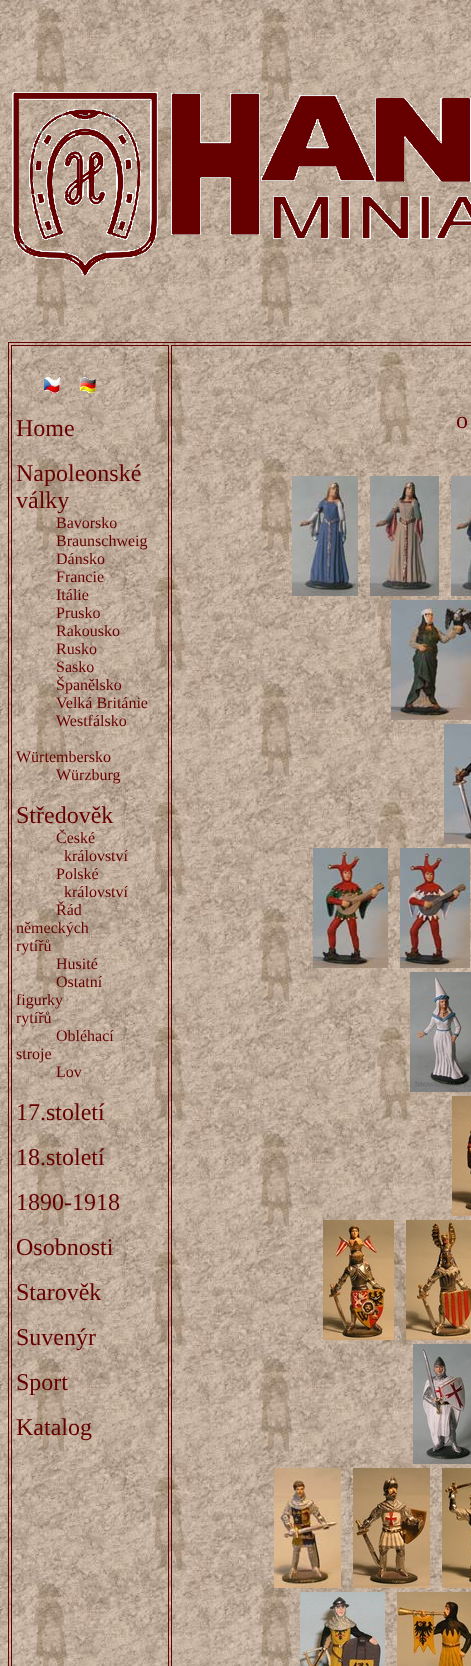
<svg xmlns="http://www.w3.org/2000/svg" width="471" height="1666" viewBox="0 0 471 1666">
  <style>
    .t1 { font: 24px Liberation Serif; fill: #600; }
    .t2 { font: 16px Liberation Serif; fill: #600; }
  </style>
  <rect width="100%" height="100%" fill="#fff"/>
  <image x="0" y="0" width="471" height="1666" href="images/1.png"/>
  <image x="12" y="92" width="459" height="184" href="images/2.png"/>
  <rect x="8.5" y="342.5" width="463" height="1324" fill="none" stroke="#600"/>
  <rect x="11.5" y="345.5" width="157" height="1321" fill="none" stroke="#600"/>
  <image x="44" y="377" width="16" height="16" href="images/3.png"/>
  <image x="80" y="377" width="16" height="16" href="images/4.png"/>
  <text x="16" y="436" class="t1">Home</text>
  <text x="16" y="481" class="t1">Napoleonské</text>
  <text x="16" y="508" class="t1">války</text>
  <text x="56" y="528" class="t2">Bavorsko</text>
  <text x="56" y="546" class="t2">Braunschweig</text>
  <text x="56" y="564" class="t2">Dánsko</text>
  <text x="56" y="582" class="t2">Francie</text>
  <text x="56" y="600" class="t2">Itálie</text>
  <text x="56" y="618" class="t2">Prusko</text>
  <text x="56" y="636" class="t2">Rakousko</text>
  <text x="56" y="654" class="t2">Rusko</text>
  <text x="56" y="672" class="t2">Sasko</text>
  <text x="56" y="690" class="t2">Španělsko</text>
  <text x="56" y="708" class="t2">Velká Británie</text>
  <text x="56" y="726" class="t2">Westfálsko</text>
  <text x="16" y="762" class="t2">Würtembersko</text>
  <text x="56" y="780" class="t2">Würzburg</text>
  <text x="16" y="823" class="t1">Středověk</text>
  <text x="56" y="843" class="t2">České</text>
  <text x="64" y="861" class="t2">království</text>
  <text x="56" y="879" class="t2">Polské</text>
  <text x="64" y="897" class="t2">království</text>
  <text x="56" y="915" class="t2">Řád</text>
  <text x="16" y="933" class="t2">německých</text>
  <text x="16" y="951" class="t2">rytířů</text>
  <text x="56" y="969" class="t2">Husité</text>
  <text x="56" y="987" class="t2">Ostatní</text>
  <text x="16" y="1005" class="t2">figurky</text>
  <text x="16" y="1023" class="t2">rytířů</text>
  <text x="56" y="1041" class="t2">Obléhací</text>
  <text x="16" y="1059" class="t2">stroje</text>
  <text x="56" y="1077" class="t2">Lov</text>
  <text x="16" y="1120" class="t1">17.století</text>
  <text x="16" y="1165" class="t1">18.století</text>
  <text x="16" y="1210" class="t1">1890-1918</text>
  <text x="16" y="1255" class="t1">Osobnosti</text>
  <text x="16" y="1300" class="t1">Starověk</text>
  <text x="16" y="1345" class="t1">Suvenýr</text>
  <text x="16" y="1390" class="t1">Sport</text>
  <text x="16" y="1435" class="t1">Katalog</text>
  <rect x="171.5" y="345.5" width="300" height="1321" fill="none" stroke="#600"/>
  <text x="456" y="428" class="t1">o</text>
  <image x="292" y="476" width="66" height="120" href="images/5.png"/>
  <image x="370" y="476" width="69" height="120" href="images/6.png"/>
  <image x="451" y="476" width="20" height="120" href="images/7.png"/>
  <image x="391" y="600" width="80" height="120" href="images/8.png"/>
  <image x="444" y="724" width="27" height="120" href="images/9.png"/>
  <image x="313" y="848" width="75" height="120" href="images/10.png"/>
  <image x="400" y="848" width="70" height="120" href="images/11.png"/>
  <image x="410" y="972" width="61" height="120" href="images/12.png"/>
  <image x="452" y="1096" width="19" height="120" href="images/13.png"/>
  <image x="323" y="1220" width="71" height="120" href="images/14.png"/>
  <image x="406" y="1220" width="65" height="120" href="images/15.png"/>
  <image x="413" y="1344" width="58" height="120" href="images/16.png"/>
  <image x="274" y="1468" width="67" height="120" href="images/17.png"/>
  <image x="353" y="1468" width="77" height="120" href="images/18.png"/>
  <image x="442" y="1468" width="29" height="120" href="images/19.png"/>
  <image x="300" y="1592" width="85" height="74" href="images/20.png"/>
  <image x="397" y="1592" width="74" height="74" href="images/21.png"/>
</svg>
